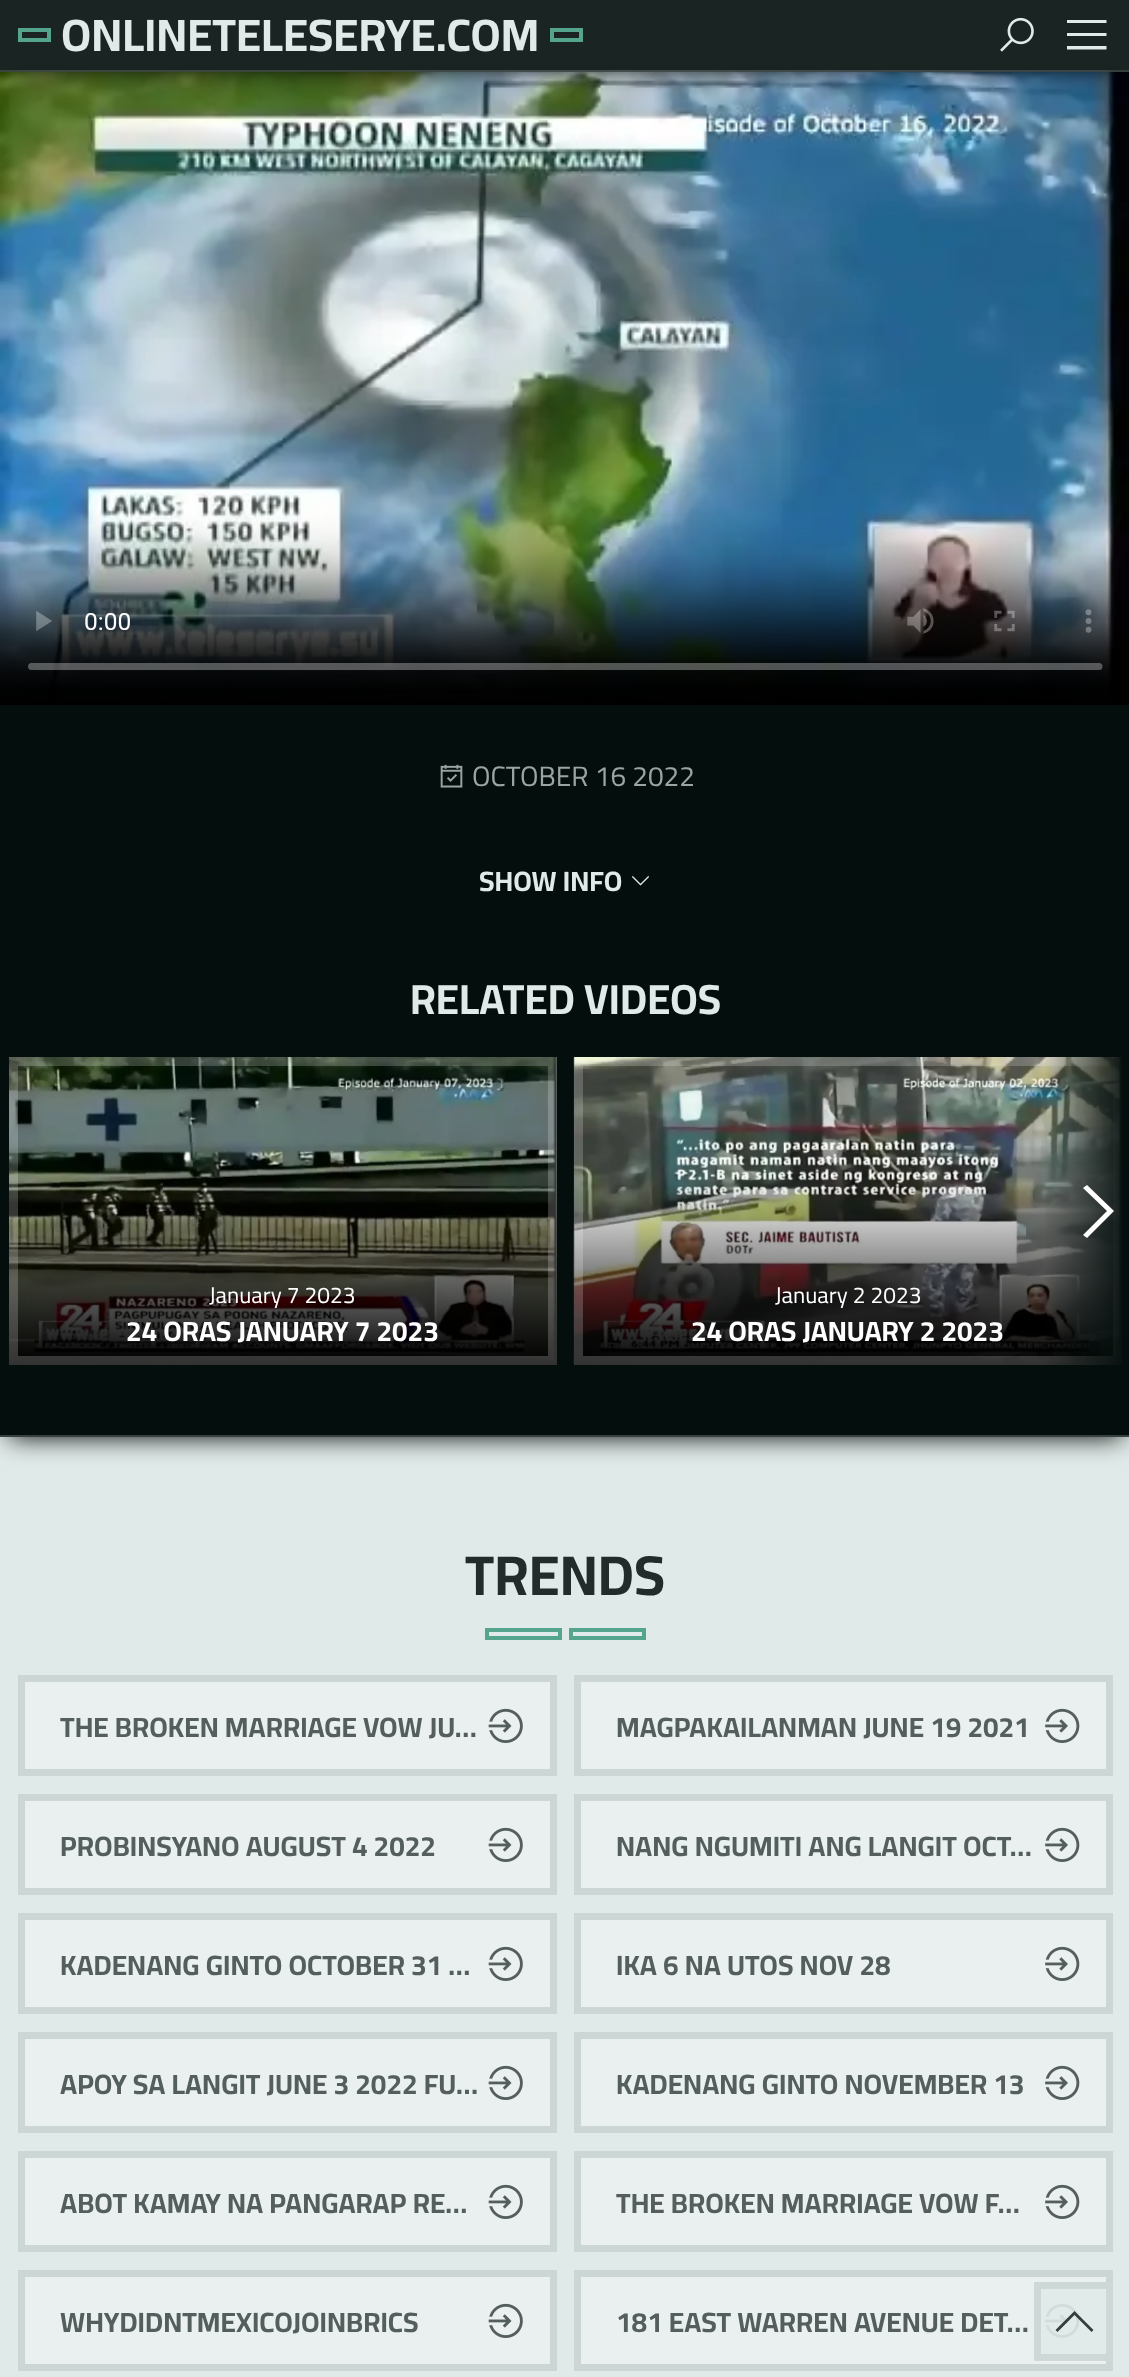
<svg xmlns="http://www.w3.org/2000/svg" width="1129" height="2377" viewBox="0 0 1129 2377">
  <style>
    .t1 { font: bold 45.5px Cairo; fill: #e0eae8; }
    .t2 { font: 28px Cairo; fill: #9aa4a2; }
    .t3 { font: bold 28px Cairo; fill: #e0eae8; }
    .t4 { font: bold 42px Cairo; fill: #e0eae8; }
    .t5 { font: 22.75px Cairo; fill: #fff; }
    .t6 { font: bold 28px Cairo; fill: #fff; }
    .t7 { font: bold 56px Cairo; fill: #222c2a; }
    .t8 { font: bold 28px Cairo; fill: #545e5c; }
  </style>
  <defs>
    <clipPath id="clip1"><path d="M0 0H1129V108H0ZM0 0H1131V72H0Z" clip-rule="evenodd"/></clipPath>
    <linearGradient id="g1" gradientUnits="userSpaceOnUse" x1="283" y1="1181" x2="283" y2="1365"><stop offset="0" stop-color="#000" stop-opacity="0"/><stop offset="1" stop-color="#000"/></linearGradient>
    <linearGradient id="g2" gradientUnits="userSpaceOnUse" x1="848" y1="1181" x2="848" y2="1365"><stop offset="0" stop-color="#000" stop-opacity="0"/><stop offset="1" stop-color="#000"/></linearGradient>
    <linearGradient id="g3" gradientUnits="userSpaceOnUse" x1="1043" y1="1211" x2="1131" y2="1211"><stop offset="0" stop-color="#040e0c" stop-opacity="0"/><stop offset="1" stop-color="#040e0c"/></linearGradient>
  </defs>
  <rect width="100%" height="100%" fill="#e0eae8"/>
  <rect x="9" y="88" width="1113" height="1349" fill="#000402" filter="blur(13px)"/>
  <image x="0" y="70" width="1129" height="635" href="images/2.png"/>
  <g clip-path="url(#clip1)">
    <rect x="12" y="21" width="1106" height="47" fill="#000" filter="blur(13px)"/>
  </g>
  <rect x="0" y="0" width="1129" height="72" fill="#040e0ce6"/>
  <rect x="0" y="70" width="1129" height="2" fill="#ffffff33"/>
  <rect x="20" y="30" width="29" height="10" fill="none" stroke="#54a48e" stroke-width="4"/>
  <text x="61" y="51" class="t1">ONLINETELESERYE.COM</text>
  <rect x="552" y="30" width="29" height="10" fill="none" stroke="#54a48e" stroke-width="4"/>
  <image x="1000" y="17" width="34" height="35" href="images/1.png"/>
  <path d="M1067 20V23H1106.5V20ZM1067 33V36H1106.5V33ZM1067 46V49.5H1106.5V46Z" fill="#e0eae8"/>
  <rect x="0" y="705" width="1129" height="730" fill="#040e0c"/>
  <rect x="0" y="1435" width="1129" height="2" fill="#36403e"/>
  <image x="440" y="764" width="23" height="24" href="images/3.png"/>
  <text x="472" y="786" class="t2">OCTOBER 16 2022</text>
  <text x="479" y="891" class="t3">SHOW INFO</text>
  <image x="631" y="876" width="19" height="10" href="images/4.png"/>
  <text x="410" y="1014" class="t4">RELATED VIDEOS</text>
  <rect x="9" y="1057" width="548" height="307" fill="#4f5655"/>
  <image x="9" y="1057" width="548" height="307" href="images/5.png"/>
  <rect x="9" y="1186" width="548" height="179" fill="url(#g1)"/>
  <rect x="13.5" y="1061.5" width="539" height="299" fill="none" stroke="#ffffff33" stroke-width="9"/>
  <text x="209" y="1303" class="t5">January 7 2023</text>
  <text x="126" y="1341" class="t6">24 ORAS JANUARY 7 2023</text>
  <rect x="574" y="1057" width="548" height="307" fill="#4f5655"/>
  <image x="573" y="1057" width="549" height="308" href="images/6.png"/>
  <rect x="574" y="1185" width="548" height="180" fill="url(#g2)"/>
  <rect x="578.5" y="1061.5" width="539" height="299" fill="none" stroke="#ffffff33" stroke-width="9"/>
  <text x="775" y="1303" class="t5">January 2 2023</text>
  <text x="691" y="1341" class="t6">24 ORAS JANUARY 2 2023</text>
  <rect x="1045" y="1057" width="77" height="308" fill="url(#g3)"/>
  <path d="M1087 1185L1083 1188L1107 1211L1083 1235L1087 1238L1114 1211Z" fill="#fff"/>
  <text x="465" y="1595" class="t7">TRENDS</text>
  <rect x="487" y="1630" width="73" height="8" fill="none" stroke="#54a48e" stroke-width="4"/>
  <rect x="571" y="1630" width="73" height="8" fill="none" stroke="#54a48e" stroke-width="4"/>
  <rect x="21.5" y="1678.5" width="532" height="94" fill="#e9f0ef" stroke="#ccd6d4" stroke-width="7"/>
  <text x="60" y="1737" class="t8">THE BROKEN MARRIAGE VOW JU…</text>
  <image x="488" y="1708" width="35" height="35" href="images/7.png"/>
  <rect x="577.5" y="1678.5" width="532" height="94" fill="#e9f0ef" stroke="#ccd6d4" stroke-width="7"/>
  <text x="616" y="1737" class="t8">MAGPAKAILANMAN JUNE 19 2021</text>
  <image x="1045" y="1708" width="35" height="35" href="images/8.png"/>
  <rect x="21.5" y="1797.5" width="532" height="94" fill="#e9f0ef" stroke="#ccd6d4" stroke-width="7"/>
  <text x="60" y="1856" class="t8">PROBINSYANO AUGUST 4 2022</text>
  <image x="488" y="1827" width="35" height="35" href="images/7.png"/>
  <rect x="577.5" y="1797.5" width="532" height="94" fill="#e9f0ef" stroke="#ccd6d4" stroke-width="7"/>
  <text x="616" y="1856" class="t8">NANG NGUMITI ANG LANGIT OCT…</text>
  <image x="1045" y="1827" width="35" height="35" href="images/8.png"/>
  <rect x="21.5" y="1916.5" width="532" height="94" fill="#e9f0ef" stroke="#ccd6d4" stroke-width="7"/>
  <text x="60" y="1975" class="t8">KADENANG GINTO OCTOBER 31 …</text>
  <image x="488" y="1946" width="35" height="35" href="images/7.png"/>
  <rect x="577.5" y="1916.5" width="532" height="94" fill="#e9f0ef" stroke="#ccd6d4" stroke-width="7"/>
  <text x="616" y="1975" class="t8">IKA 6 NA UTOS NOV 28</text>
  <image x="1045" y="1946" width="35" height="35" href="images/8.png"/>
  <rect x="21.5" y="2035.5" width="532" height="94" fill="#e9f0ef" stroke="#ccd6d4" stroke-width="7"/>
  <text x="60" y="2094" class="t8">APOY SA LANGIT JUNE 3 2022 FU…</text>
  <image x="488" y="2065" width="35" height="35" href="images/7.png"/>
  <rect x="577.5" y="2035.5" width="532" height="94" fill="#e9f0ef" stroke="#ccd6d4" stroke-width="7"/>
  <text x="616" y="2094" class="t8">KADENANG GINTO NOVEMBER 13</text>
  <image x="1045" y="2065" width="35" height="35" href="images/8.png"/>
  <rect x="21.5" y="2154.5" width="532" height="94" fill="#e9f0ef" stroke="#ccd6d4" stroke-width="7"/>
  <text x="60" y="2213" class="t8">ABOT KAMAY NA PANGARAP RE…</text>
  <image x="488" y="2184" width="35" height="35" href="images/7.png"/>
  <rect x="577.5" y="2154.5" width="532" height="94" fill="#e9f0ef" stroke="#ccd6d4" stroke-width="7"/>
  <text x="616" y="2213" class="t8">THE BROKEN MARRIAGE VOW F…</text>
  <image x="1045" y="2184" width="35" height="35" href="images/8.png"/>
  <rect x="21.5" y="2273.5" width="532" height="94" fill="#e9f0ef" stroke="#ccd6d4" stroke-width="7"/>
  <text x="60" y="2332" class="t8">WHYDIDNTMEXICOJOINBRICS</text>
  <image x="488" y="2303" width="35" height="35" href="images/7.png"/>
  <rect x="577.5" y="2273.5" width="532" height="94" fill="#e9f0ef" stroke="#ccd6d4" stroke-width="7"/>
  <text x="616" y="2332" class="t8">181 EAST WARREN AVENUE DET…</text>
  <image x="1045" y="2303" width="35" height="35" href="images/8.png"/>
  <rect x="1034" y="2282" width="79" height="79" fill="#e0eae8e6"/>
  <rect x="1037.5" y="2285.5" width="72" height="72" fill="none" stroke="#ccd6d4e6" stroke-width="7"/>
  <path d="M1074.5 2311L1055.5 2330L1057.5 2332L1074.5 2315L1091.5 2332L1093.5 2330Z" fill="#222c2ae6"/>
</svg>
